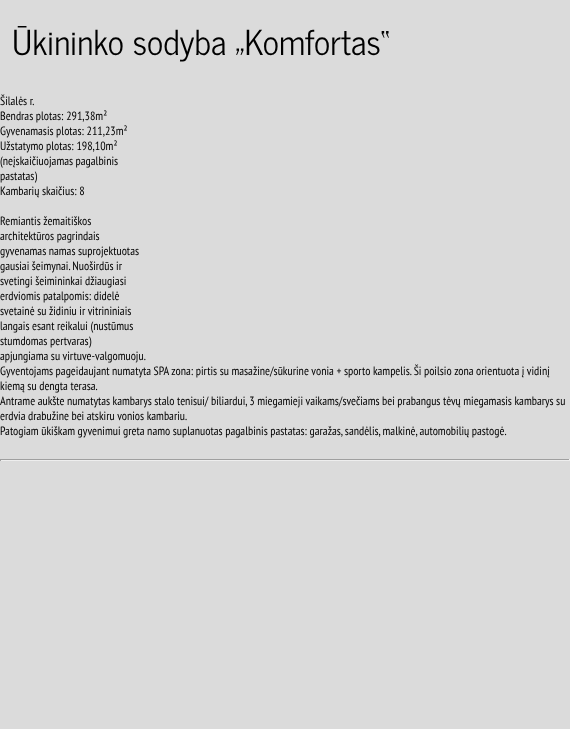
<svg xmlns="http://www.w3.org/2000/svg" width="570" height="729" viewBox="0 0 570 729">
  <style>
    .t1 { font: 34px News Cycle; fill: #000; }
    .t2 { font: 12px PT Sans Narrow; fill: #000; }
  </style>
  <rect width="100%" height="100%" fill="#dbdbdb"/>
  <text x="12" y="55" class="t1">Ūkininko sodyba „Komfortas“</text>
  <text x="0" y="105" class="t2">Šilalės r.</text>
  <text x="0" y="120" class="t2">Bendras plotas: 291,38m²</text>
  <text x="0" y="135" class="t2">Gyvenamasis plotas: 211,23m²</text>
  <text x="0" y="150" class="t2">Užstatymo plotas: 198,10m²</text>
  <text x="0" y="165" class="t2">(neįskaičiuojamas pagalbinis</text>
  <text x="0" y="180" class="t2">pastatas)</text>
  <text x="0" y="195" class="t2">Kambarių skaičius: 8</text>
  <text x="0" y="225" class="t2">Remiantis žemaitiškos</text>
  <text x="0" y="240" class="t2">architektūros pagrindais</text>
  <text x="0" y="255" class="t2">gyvenamas namas suprojektuotas</text>
  <text x="0" y="270" class="t2">gausiai šeimynai. Nuoširdūs ir</text>
  <text x="0" y="285" class="t2">svetingi šeimininkai džiaugiasi</text>
  <text x="0" y="300" class="t2">erdviomis patalpomis: didelė</text>
  <text x="0" y="315" class="t2">svetainė su židiniu ir vitrininiais</text>
  <text x="0" y="330" class="t2">langais esant reikalui (nustūmus</text>
  <text x="0" y="345" class="t2">stumdomas pertvaras)</text>
  <text x="0" y="360" class="t2">apjungiama su virtuve-valgomuoju.</text>
  <text x="0" y="375" class="t2">Gyventojams pageidaujant numatyta SPA zona: pirtis su masažine/sūkurine vonia + sporto kampelis. Ši poilsio zona orientuota į vidinį</text>
  <text x="0" y="390" class="t2">kiemą su dengta terasa.</text>
  <text x="0" y="405" class="t2">Antrame aukšte numatytas kambarys stalo tenisui/ biliardui, 3 miegamieji vaikams/svečiams bei prabangus tėvų miegamasis kambarys su</text>
  <text x="0" y="420" class="t2">erdvia drabužine bei atskiru vonios kambariu.</text>
  <text x="0" y="435" class="t2">Patogiam ūkiškam gyvenimui greta namo suplanuotas pagalbinis pastatas: garažas, sandėlis, malkinė, automobilių pastogė.</text>
  <rect x="0" y="459" width="570" height="1" fill="#9f9f9f"/>
  <rect x="569" y="459" width="1" height="2" fill="#eee"/>
  <rect x="0" y="460" width="570" height="1" fill="#eee"/>
  <rect x="0" y="459" width="1" height="2" fill="#9f9f9f"/>
</svg>
